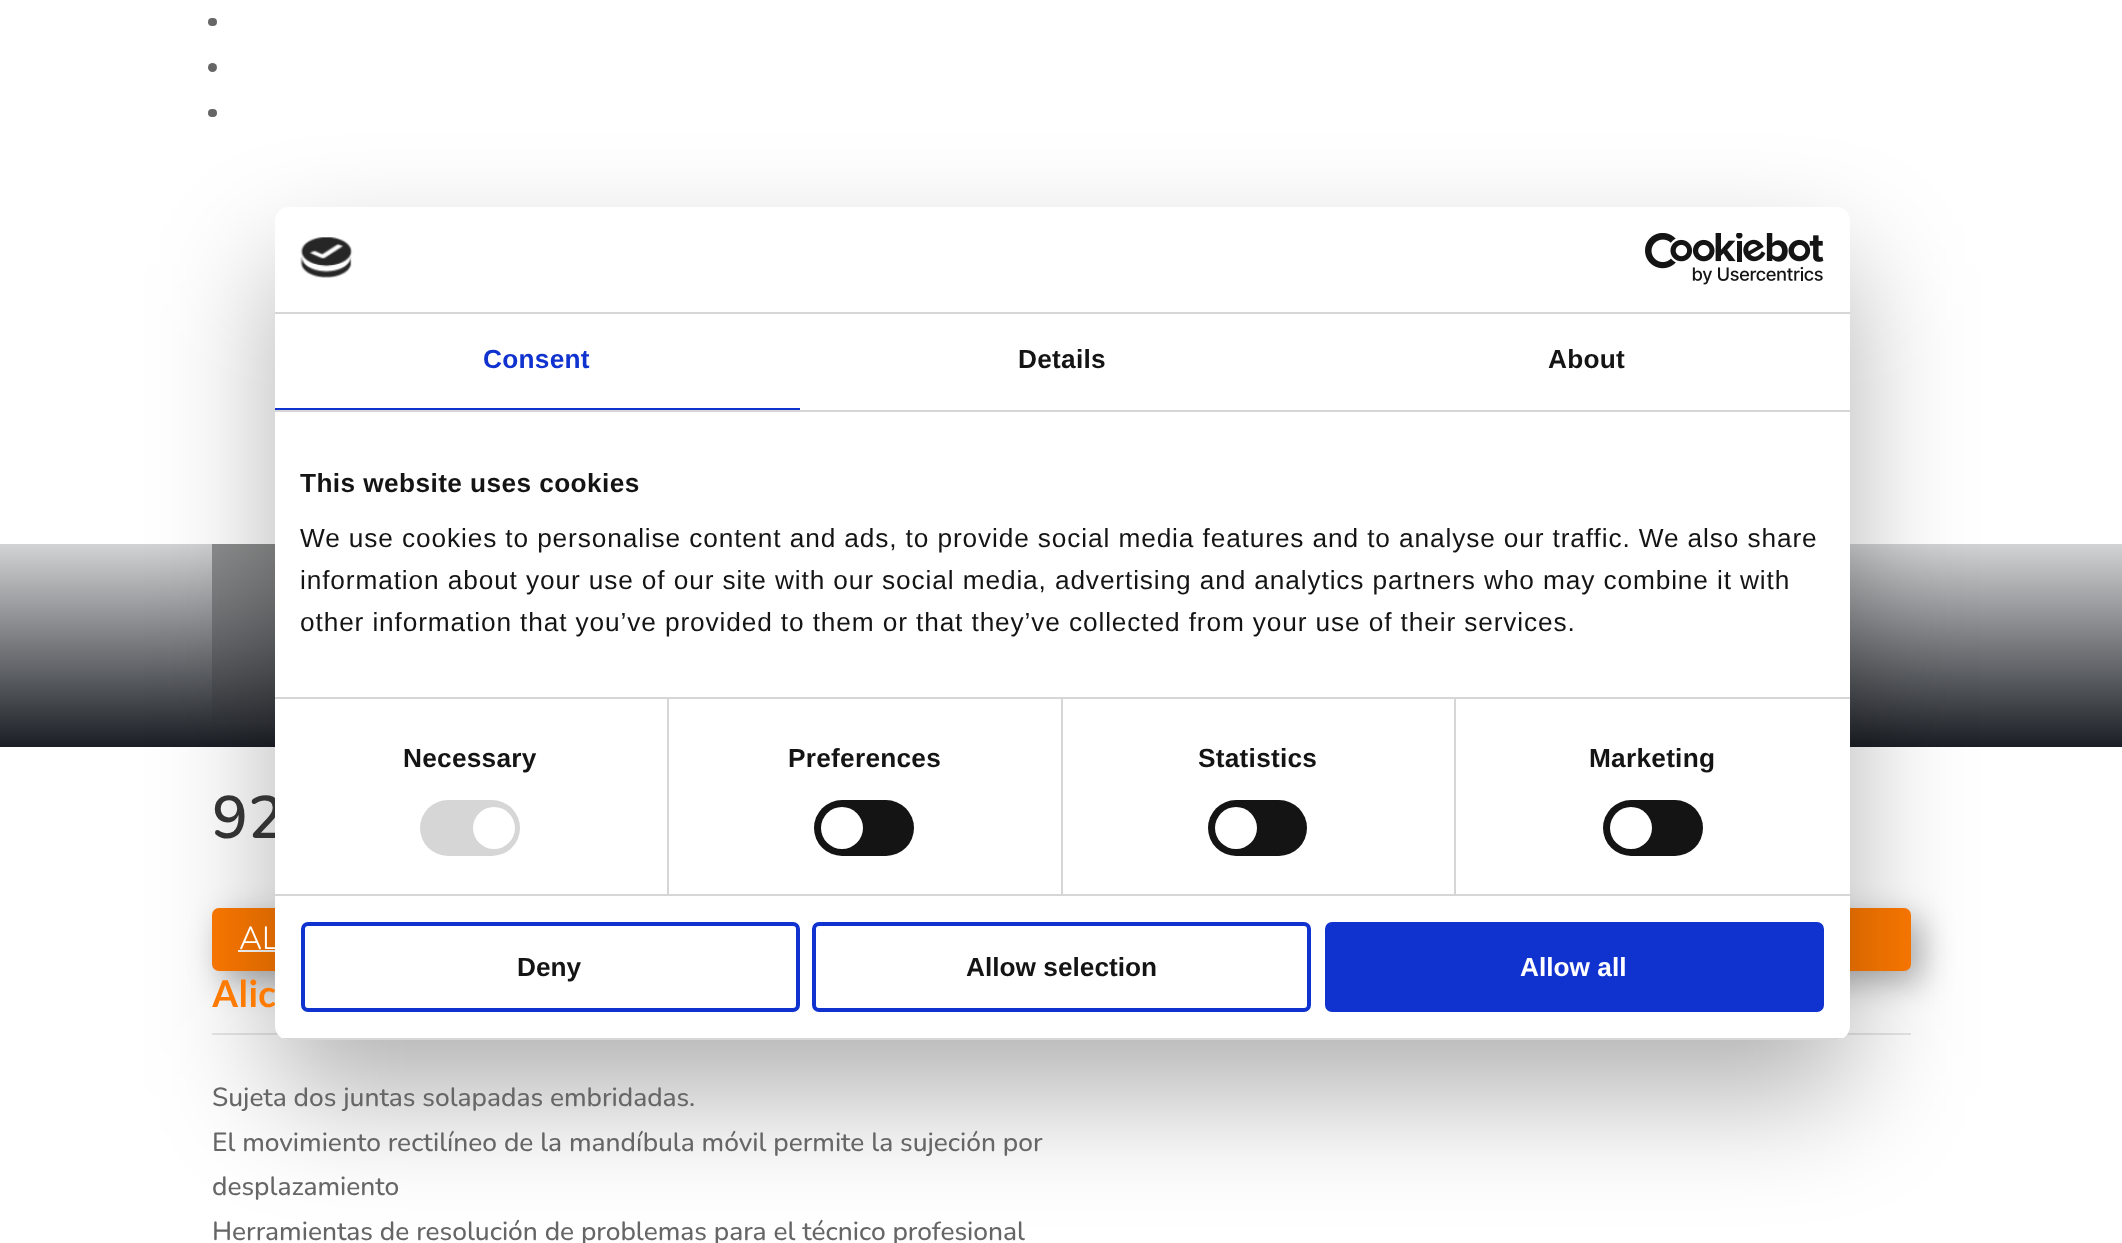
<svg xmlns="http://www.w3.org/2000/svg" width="2122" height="1243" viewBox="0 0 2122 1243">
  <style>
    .t1 { font: 600 60px Nunito; fill: #333; }
    .t2 { font: bold 37px Lato; fill: #ff7a01; }
    .t3 { font: bold 26.25px Liberation Sans; letter-spacing: 0.25px; fill: #1032cf; }
    .t4 { font: bold 26.25px Liberation Sans; letter-spacing: 0.25px; fill: #141414; }
    .t5 { font: bold 26.25px Liberation Sans; letter-spacing: 0.4px; fill: #141414; }
    .t6 { font: 26.25px Liberation Sans; letter-spacing: 0.88px; fill: #141414; }
    .t7 { font: bold 26.25px Liberation Sans; fill: #141414; }
    .t8 { font: bold 26.25px Liberation Sans; fill: #fff; }
    .t9 { font: 300 32px Nunito; fill: #fff; }
    .t10 { font: 500 26.25px Nunito; fill: #666; }
  </style>
  <defs>
    <linearGradient id="g1" gradientUnits="userSpaceOnUse" x1="1061" y1="544" x2="1061" y2="747"><stop offset="0" stop-color="#d2d3d4"/><stop offset="1" stop-color="#1b1f25"/></linearGradient>
    <linearGradient id="g2" gradientUnits="userSpaceOnUse" x1="778" y1="544" x2="778" y2="747"><stop offset="0" stop-color="#000" stop-opacity="0.33"/><stop offset="1" stop-color="#000" stop-opacity="0"/></linearGradient>
    <clipPath id="clip1"><rect x="275" y="207" width="1575" height="833" rx="14"/></clipPath>
  </defs>
  <rect width="100%" height="100%" fill="#fff"/>
  <rect x="208" y="109" width="9" height="8" rx="4" fill="#666"/>
  <rect x="0" y="544" width="2122" height="203" fill="url(#g1)"/>
  <rect x="212" y="544" width="63" height="176" fill="url(#g2)"/>
  <rect x="222" y="919" width="1700" height="63" rx="7" fill="#0000004d" filter="blur(16px)"/>
  <rect x="212" y="908" width="1699" height="63" rx="7" fill="#ff7a01"/>
  <rect x="238" y="950" width="37" height="2" fill="#fff"/>
  <rect x="212" y="1033" width="1699" height="2" fill="#e7e7e7"/>
  <rect x="275" y="263" width="1575" height="833" rx="14" fill="#0000004d" filter="blur(59.5px)"/>
  <text x="212" y="838" class="t1">92</text>
  <text x="212" y="1007" class="t2">Alic</text>
  <rect x="275" y="207" width="1575" height="833" rx="14" fill="#fff"/>
  <rect x="275" y="312" width="1575" height="2" fill="#d6d6d6"/>
  <image x="300" y="237" width="53" height="41" href="images/1.png"/>
  <image x="1645" y="233" width="179" height="52" href="images/2.png"/>
  <rect x="275" y="410" width="1575" height="2" fill="#d6d6d6"/>
  <rect x="275" y="408" width="525" height="2" fill="#1032cf"/>
  <text x="483" y="368" class="t3">Consent</text>
  <text x="1018" y="368" class="t4">Details</text>
  <text x="1548" y="368" class="t4">About</text>
  <rect x="667" y="698" width="2" height="196" fill="#d6d6d6"/>
  <rect x="1061" y="698" width="2" height="196" fill="#d6d6d6"/>
  <rect x="1454" y="698" width="2" height="196" fill="#d6d6d6"/>
  <rect x="275" y="697" width="1575" height="2" fill="#d6d6d6"/>
  <text x="300" y="492" class="t5">This website uses cookies</text>
  <text x="300" y="547" class="t6">We use cookies to personalise content and ads, to provide social media features and to analyse our traffic. We also share</text>
  <text x="300" y="589" class="t6">information about your use of our site with our social media, advertising and analytics partners who may combine it with</text>
  <text x="300" y="631" class="t6">other information that you’ve provided to them or that they’ve collected from your use of their services.</text>
  <rect x="275" y="894" width="1575" height="2" fill="#d6d6d6"/>
  <text x="403" y="767" class="t4">Necessary</text>
  <rect x="420" y="800" width="100" height="56" rx="28" fill="#d6d6d6"/>
  <circle cx="494" cy="828" r="21" fill="#fff"/>
  <text x="788" y="767" class="t4">Preferences</text>
  <rect x="814" y="800" width="100" height="56" rx="28" fill="#141414"/>
  <circle cx="842" cy="828" r="21" fill="#fff"/>
  <text x="1198" y="767" class="t4">Statistics</text>
  <rect x="1208" y="800" width="99" height="56" rx="28" fill="#141414"/>
  <circle cx="1236" cy="828" r="21" fill="#fff"/>
  <text x="1589" y="767" class="t4">Marketing</text>
  <rect x="1603" y="800" width="100" height="56" rx="28" fill="#141414"/>
  <circle cx="1631" cy="828" r="21" fill="#fff"/>
  <g clip-path="url(#clip1)">
    <rect x="275" y="1038" width="1575" height="2" fill="#d6d6d6"/>
  </g>
  <rect x="303" y="924" width="495" height="86" rx="5" fill="none" stroke="#1032cf" stroke-width="4"/>
  <text x="517" y="976" class="t7">Deny</text>
  <rect x="814" y="924" width="495" height="86" rx="5" fill="none" stroke="#1032cf" stroke-width="4"/>
  <text x="966" y="976" class="t7">Allow selection</text>
  <rect x="1327" y="924" width="495" height="86" rx="5" fill="#1032cf" stroke="#1032cf" stroke-width="4"/>
  <text x="1520" y="976" class="t8">Allow all</text>
  <rect x="208" y="18" width="9" height="8" rx="4" fill="#666"/>
  <circle cx="212.5" cy="67.5" r="4.5" fill="#666"/>
  <text x="239" y="949" class="t9">AL</text>
  <text x="212" y="1106" class="t10">Sujeta dos juntas solapadas embridadas.</text>
  <text x="212" y="1151" class="t10">El movimiento rectilíneo de la mandíbula móvil permite la sujeción por</text>
  <text x="212" y="1195" class="t10">desplazamiento</text>
  <text x="212" y="1240" class="t10">Herramientas de resolución de problemas para el técnico profesional</text>
</svg>
